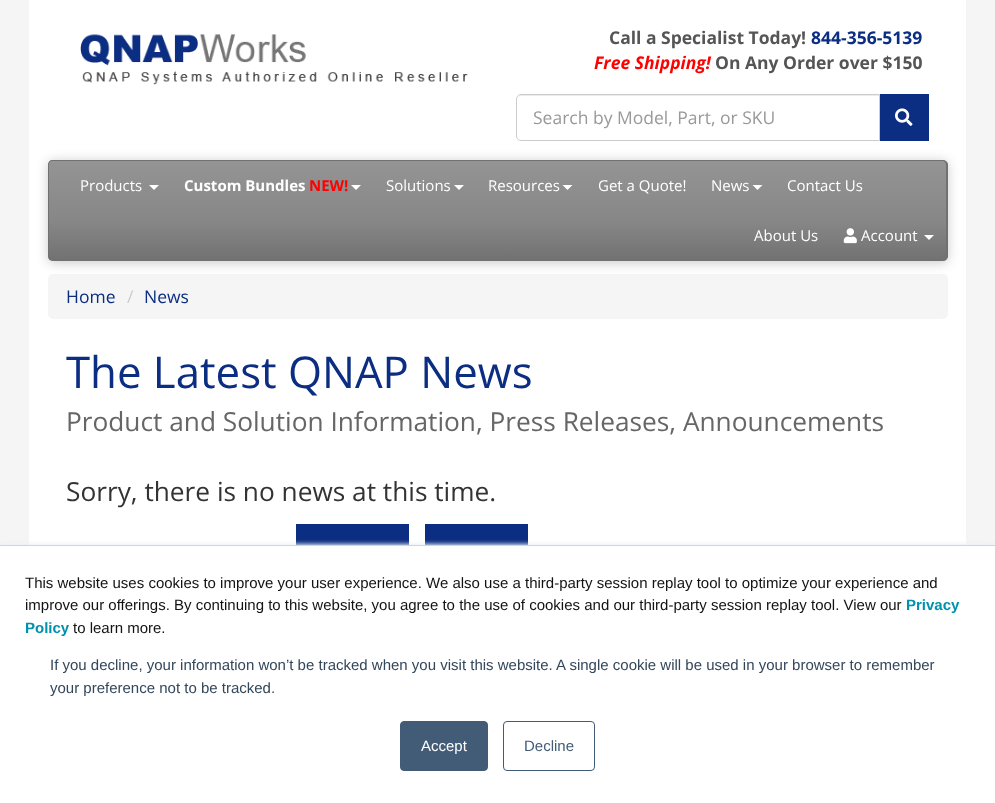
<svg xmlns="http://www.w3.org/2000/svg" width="995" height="803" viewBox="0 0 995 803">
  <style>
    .t1 { font: bold 17.5px Open Sans; fill: #555; }
    .t2 { font: bold 17.5px Open Sans; fill: #0c2e82; }
    .t3 { font: italic bold 17.5px Open Sans; fill: #f00; }
    .t4 { font: 17.5px Open Sans; fill: #999; }
    .t5 { font: 15px Open Sans; fill: #fff; }
    .t6 { font: bold 15px Open Sans; fill: #fff; }
    .t7 { font: bold 15px Open Sans; fill: #f00; }
    .t8 { font: 17.5px Open Sans; fill: #0c2e82; }
    .t9 { font: 17.5px Open Sans; fill: #ccc; }
    .t10 { font: 43.75px Open Sans; fill: #0c2e82; }
    .t11 { font: 26.25px Open Sans; fill: #666; }
    .t12 { font: 26.25px Open Sans; fill: #333; }
    .t13 { font: 15px Liberation Sans; fill: #121212; }
    .t14 { font: bold 15px Liberation Sans; fill: #0091ae; }
    .t15 { font: 15px Liberation Sans; fill: #33475b; }
    .t16 { font: 15px Liberation Sans; fill: #fff; }
    .t17 { font: 15px Liberation Sans; fill: #425b76; }
  </style>
  <defs>
    <clipPath id="clip1"><rect x="48" y="160" width="900" height="101" rx="5"/></clipPath>
    <linearGradient id="g1" gradientUnits="userSpaceOnUse" x1="498" y1="161" x2="498" y2="261"><stop offset="0" stop-color="#949494"/><stop offset="0.6" stop-color="#878787"/><stop offset="1" stop-color="#717171"/></linearGradient>
  </defs>
  <rect width="100%" height="100%" fill="#f5f5f5"/>
  <rect x="29" y="0" width="937" height="545" fill="#fff"/>
  <image x="80" y="34" width="388" height="51" href="images/1.png"/>
  <text x="609" y="44" class="t1">Call a Specialist Today!</text>
  <text x="811" y="44" class="t2">844-356-5139</text>
  <text x="594" y="69" class="t3">Free Shipping!</text>
  <text x="715" y="69" class="t1">On Any Order over $150</text>
  <path d="M521 96H879V95H522C519 95 518 97 518 100C518 98 519 96 521 96Z" fill="#ececec"/>
  <path d="M521 94.5H879.5V140.5H521C518.5 140.5 516.5 138.5 516.5 136V99C516.5 96.5 518.5 94.5 521 94.5Z" fill="none" stroke="#ccc"/>
  <text x="533" y="124" class="t4">Search by Model, Part, or SKU</text>
  <rect x="880" y="94" width="49" height="47" fill="#0c2e82"/>
  <image x="895" y="108" width="18" height="18" href="images/2.png"/>
  <rect x="48" y="274" width="900" height="45" rx="5" fill="#f5f5f5"/>
  <rect x="48" y="161" width="900" height="102" rx="5" fill="#00000033" filter="blur(6px)"/>
  <rect x="48" y="160" width="900" height="101" rx="5" fill="#949494"/>
  <g clip-path="url(#clip1)">
    <rect x="49" y="161" width="897" height="100" fill="url(#g1)"/>
  </g>
  <path d="M52 160H942C945 160 948 162 948 165V256C948 259 945 261 942 261H52C50 261 48 259 48 256V165C48 162 50 160 52 160ZM52 161H942C945 161 946 163 946 165V256C946 259 945 261 942 261H52C50 261 49 259 49 256V165C49 163 50 161 52 161Z" fill="#717171" fill-rule="evenodd"/>
  <text x="80" y="191" class="t5">Products</text>
  <path d="M149 185H159L154 190Z" fill="#fff"/>
  <text x="184" y="191" class="t6">Custom Bundles</text>
  <text x="309" y="191" class="t7">NEW!</text>
  <path d="M351 185H361L356 190Z" fill="#fff"/>
  <text x="386" y="191" class="t5">Solutions</text>
  <path d="M454 185H464L459 190Z" fill="#fff"/>
  <text x="488" y="191" class="t5">Resources</text>
  <path d="M562.5 185H572.5L567.5 190Z" fill="#fff"/>
  <text x="598" y="191" class="t5">Get a Quote!</text>
  <text x="711" y="191" class="t5">News</text>
  <path d="M752.5 185H762.5L757.5 190Z" fill="#fff"/>
  <text x="787" y="191" class="t5">Contact Us</text>
  <text x="754" y="241" class="t5">About Us</text>
  <image x="843" y="228" width="14" height="16" href="images/3.png"/>
  <text x="861" y="241" class="t5">Account</text>
  <path d="M924 235H934L929 240Z" fill="#fff"/>
  <text x="66" y="303" class="t8">Home</text>
  <text x="127" y="303" class="t9">/</text>
  <text x="144" y="303" class="t8">News</text>
  <text x="66" y="388" class="t10">The Latest QNAP News</text>
  <text x="66" y="431" class="t11">Product and Solution Information, Press Releases, Announcements</text>
  <text x="66" y="501" class="t12">Sorry, there is no news at this time.</text>
  <rect x="296" y="524" width="113" height="21" fill="#0c2e82"/>
  <rect x="425" y="524" width="103" height="21" fill="#0c2e82"/>
  <rect x="0" y="544" width="995" height="259" fill="#eaf0f6" filter="blur(2px)"/>
  <rect x="0" y="546" width="995" height="257" fill="#fff"/>
  <rect x="0" y="545" width="995" height="1" fill="#cbd6e2"/>
  <text x="25" y="588" class="t13">This website uses cookies to improve your user experience. We also use a third-party session replay tool to optimize your experience and</text>
  <text x="25" y="610" class="t13">improve our offerings. By continuing to this website, you agree to the use of cookies and our third-party session replay tool. View our</text>
  <text x="906" y="610" class="t14">Privacy</text>
  <text x="25" y="633" class="t14">Policy</text>
  <text x="73" y="633" class="t13">to learn more.</text>
  <text x="50" y="670" class="t15">If you decline, your information won’t be tracked when you visit this website. A single cookie will be used in your browser to remember</text>
  <text x="50" y="693" class="t15">your preference not to be tracked.</text>
  <rect x="400.5" y="721.5" width="87" height="49" rx="3.5" fill="#425b76" stroke="#425b76"/>
  <text x="421" y="751" class="t16">Accept</text>
  <rect x="503.5" y="721.5" width="91" height="49" rx="3.5" fill="none" stroke="#425b76"/>
  <text x="524" y="751" class="t17">Decline</text>
</svg>
